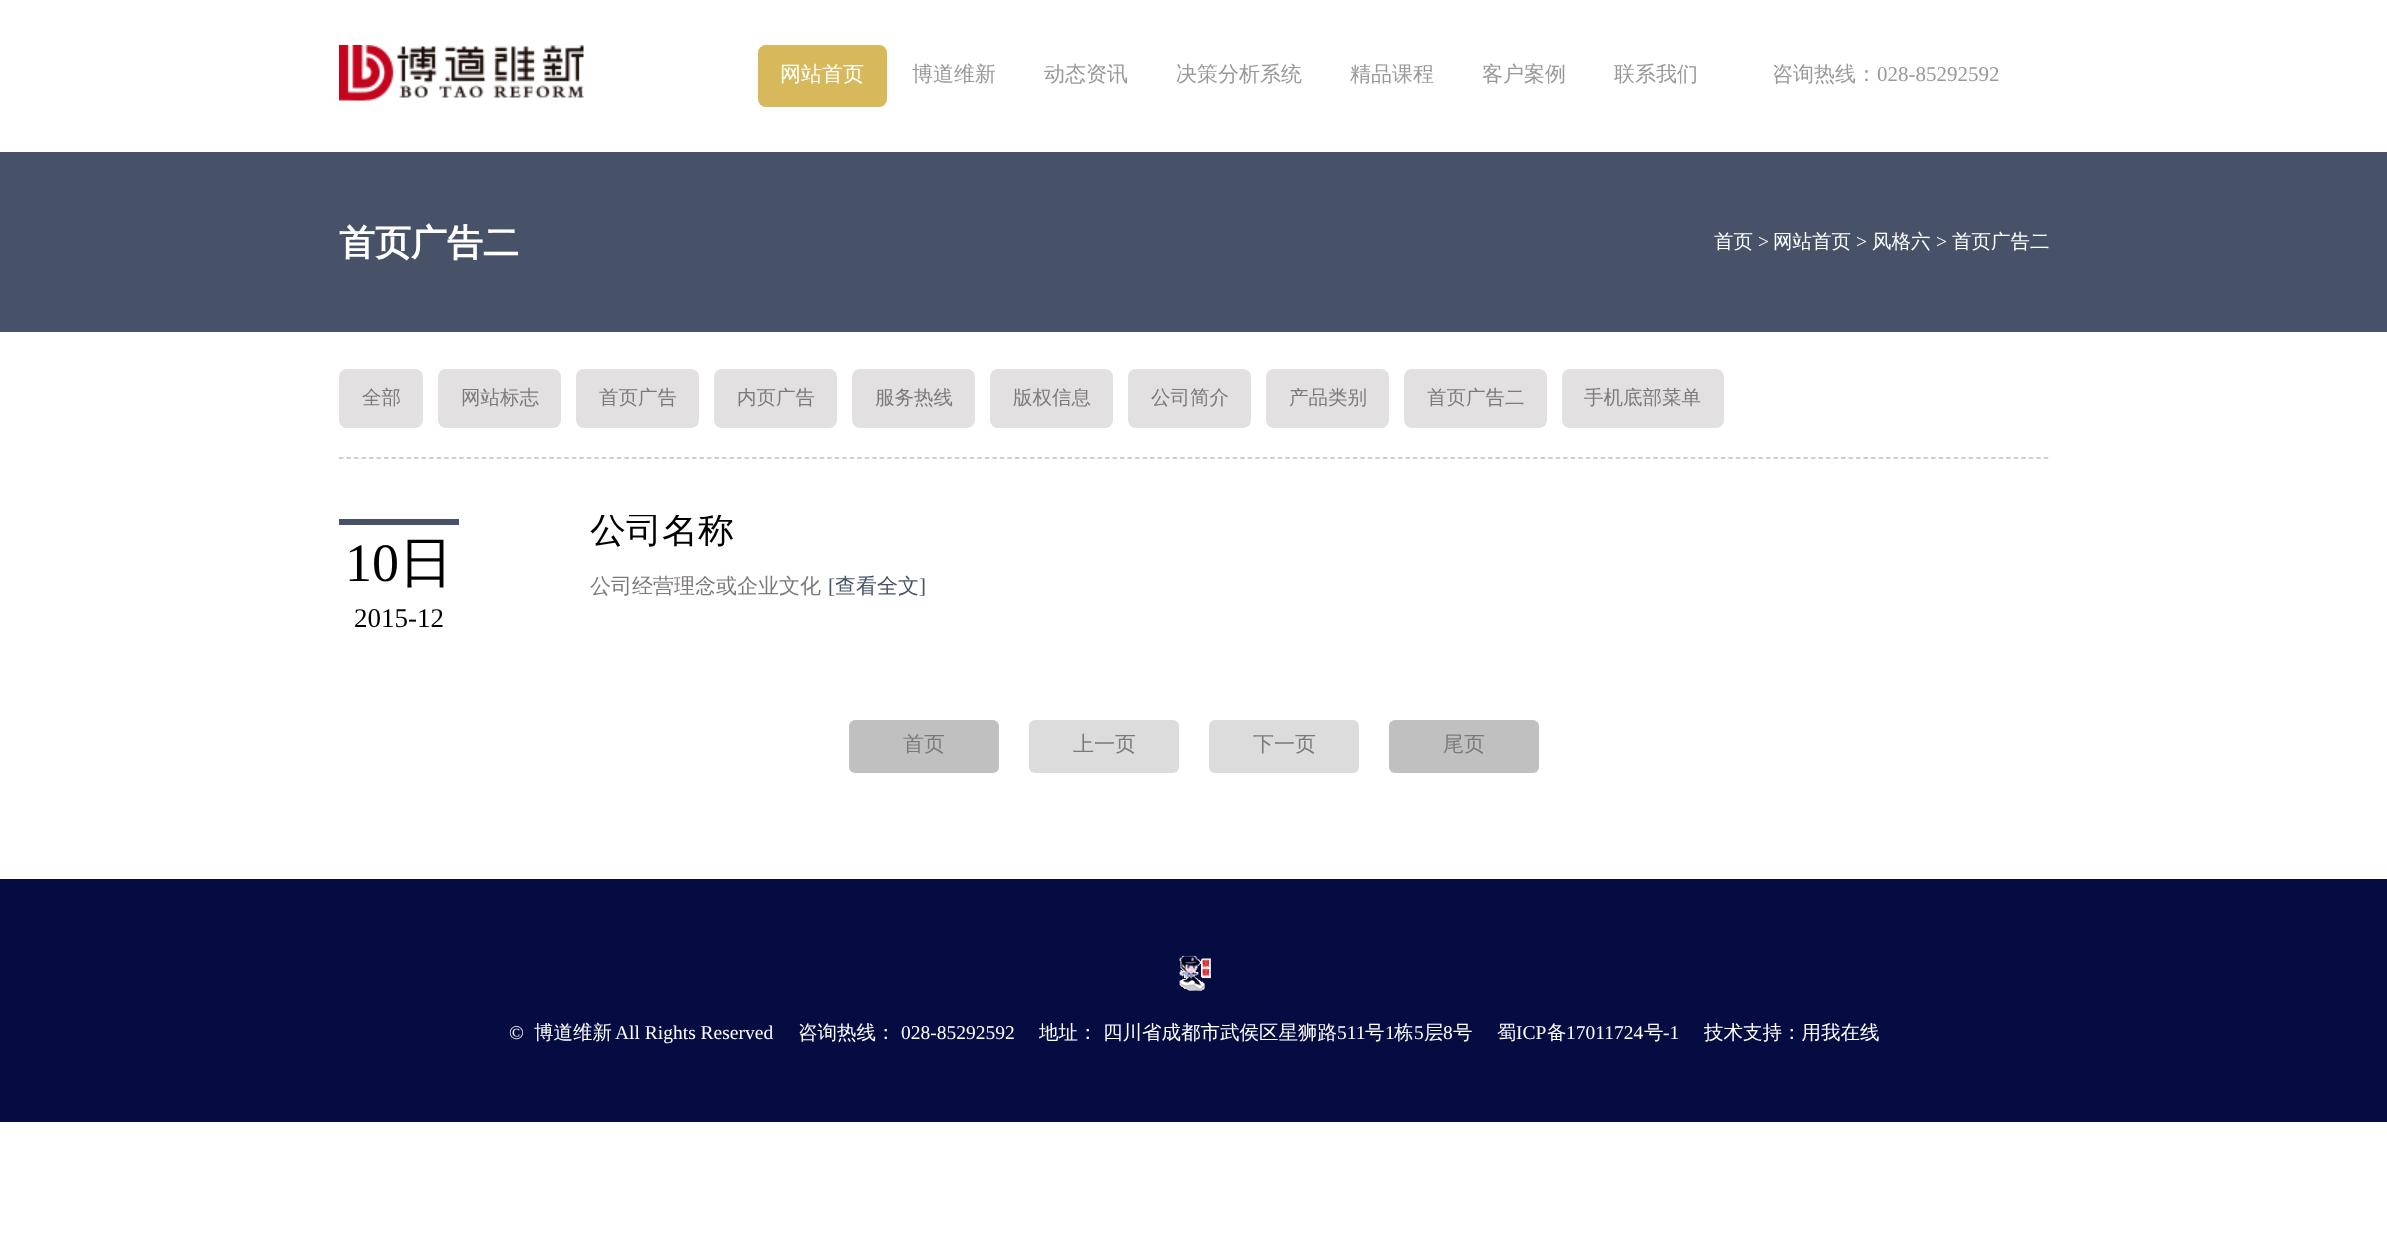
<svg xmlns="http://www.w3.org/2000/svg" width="2387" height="1246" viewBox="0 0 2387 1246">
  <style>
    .t1 { font: 500 21px WenQuanYi Zen Hei; fill: #fff; }
    .t2 { font: 500 21px WenQuanYi Zen Hei; fill: #999; }
    .t3 { font: 21px Liberation Serif; fill: #999; }
    .t4 { font: bold 36px WenQuanYi Zen Hei; fill: #fff; }
    .t5 { font: 500 19.5px WenQuanYi Zen Hei; fill: #fff; }
    .t6 { font: 19.5px Liberation Serif; fill: #fff; }
    .t7 { font: 500 19.5px WenQuanYi Zen Hei; fill: #7d797a; }
    .t8 { font: 54px Liberation Serif; fill: #000; }
    .t9 { font: 500 54px WenQuanYi Zen Hei; fill: #000; }
    .t10 { font: 27px Liberation Serif; fill: #000; }
    .t11 { font: 500 36px WenQuanYi Zen Hei; fill: #000; }
    .t12 { font: 500 21px WenQuanYi Zen Hei; fill: #7d797a; }
    .t13 { font: 21px Liberation Serif; fill: #475268; }
    .t14 { font: 500 21px WenQuanYi Zen Hei; fill: #475268; }
  </style>
  <defs>
    <clipPath id="clip1"><rect x="590" y="515" width="1329" height="52"/></clipPath>
  </defs>
  <rect width="100%" height="100%" fill="#fff"/>
  <image x="339" y="45" width="245" height="56" href="images/1.png"/>
  <rect x="758" y="45" width="129" height="62" rx="8" fill="#d7b95b"/>
  <text x="780" y="81" class="t1">网站首页</text>
  <text x="912" y="81" class="t2">博道维新</text>
  <text x="1044" y="81" class="t2">动态资讯</text>
  <text x="1176" y="81" class="t2">决策分析系统</text>
  <text x="1350" y="81" class="t2">精品课程</text>
  <text x="1482" y="81" class="t2">客户案例</text>
  <text x="1614" y="81" class="t2">联系我们</text>
  <text x="1772" y="81" class="t2">咨询热线：</text>
  <text x="1877" y="81" class="t3">028-85292592</text>
  <rect x="0" y="152" width="2387" height="180" fill="#475268"/>
  <text x="339" y="255" class="t4">首页广告二</text>
  <text x="1714" y="248" class="t5">首页</text>
  <text x="1758" y="248" class="t6">&gt;</text>
  <text x="1773" y="248" class="t5">网站首页</text>
  <text x="1856" y="248" class="t6">&gt;</text>
  <text x="1872" y="248" class="t5">风格六</text>
  <text x="1936" y="248" class="t6">&gt;</text>
  <text x="1952" y="248" class="t5">首页广告二</text>
  <path d="M339 458H2049" fill="none" stroke="#bfc0c0" stroke-width="1.5" stroke-dasharray="4.5 3.01"/>
  <rect x="339" y="369" width="84" height="59" rx="8" fill="#e2e0e1"/>
  <text x="362" y="404" class="t7">全部</text>
  <rect x="438" y="369" width="123" height="59" rx="8" fill="#e2e0e1"/>
  <text x="461" y="404" class="t7">网站标志</text>
  <rect x="576" y="369" width="123" height="59" rx="8" fill="#e2e0e1"/>
  <text x="599" y="404" class="t7">首页广告</text>
  <rect x="714" y="369" width="123" height="59" rx="8" fill="#e2e0e1"/>
  <text x="737" y="404" class="t7">内页广告</text>
  <rect x="852" y="369" width="123" height="59" rx="8" fill="#e2e0e1"/>
  <text x="875" y="404" class="t7">服务热线</text>
  <rect x="990" y="369" width="123" height="59" rx="8" fill="#e2e0e1"/>
  <text x="1013" y="404" class="t7">版权信息</text>
  <rect x="1128" y="369" width="123" height="59" rx="8" fill="#e2e0e1"/>
  <text x="1151" y="404" class="t7">公司简介</text>
  <rect x="1266" y="369" width="123" height="59" rx="8" fill="#e2e0e1"/>
  <text x="1289" y="404" class="t7">产品类别</text>
  <rect x="1404" y="369" width="143" height="59" rx="8" fill="#e2e0e1"/>
  <text x="1427" y="404" class="t7">首页广告二</text>
  <rect x="1562" y="369" width="162" height="59" rx="8" fill="#e2e0e1"/>
  <text x="1584" y="404" class="t7">手机底部菜单</text>
  <rect x="339" y="519" width="120" height="6" fill="#475268"/>
  <text x="345" y="581" class="t8">10</text>
  <text x="399" y="581" class="t9">日</text>
  <text x="354" y="627" class="t10">2015-12</text>
  <g clip-path="url(#clip1)">
    <text x="590" y="542" class="t11">公司名称</text>
  </g>
  <text x="590" y="593" class="t12">公司经营理念或企业文化</text>
  <text x="828" y="593" class="t13">[</text>
  <text x="835" y="593" class="t14">查看全文</text>
  <text x="919" y="593" class="t13">]</text>
  <rect x="849" y="720" width="150" height="53" rx="6" fill="#c0c0c0"/>
  <text x="903" y="751" class="t12">首页</text>
  <rect x="1029" y="720" width="150" height="53" rx="6" fill="#dcdcdc"/>
  <text x="1073" y="751" class="t12">上一页</text>
  <rect x="1209" y="720" width="150" height="53" rx="6" fill="#dcdcdc"/>
  <text x="1253" y="751" class="t12">下一页</text>
  <rect x="1389" y="720" width="150" height="53" rx="6" fill="#c0c0c0"/>
  <text x="1443" y="751" class="t12">尾页</text>
  <rect x="0" y="879" width="2387" height="243" fill="#040c42"/>
  <image x="1179" y="955" width="32" height="36" href="images/2.png"/>
  <text x="509" y="1039" class="t6">©</text>
  <text x="534" y="1039" class="t5">博道维新</text>
  <text x="615" y="1039" class="t6">All Rights Reserved</text>
  <text x="798" y="1039" class="t5">咨询热线：</text>
  <text x="901" y="1039" class="t6">028-85292592</text>
  <text x="1039" y="1039" class="t5">地址：</text>
  <text x="1103" y="1039" class="t5">四川省成都市武侯区星狮路</text>
  <text x="1337" y="1039" class="t6">511</text>
  <text x="1365" y="1039" class="t5">号</text>
  <text x="1385" y="1039" class="t6">1</text>
  <text x="1394" y="1039" class="t5">栋</text>
  <text x="1414" y="1039" class="t6">5</text>
  <text x="1424" y="1039" class="t5">层</text>
  <text x="1443" y="1039" class="t6">8</text>
  <text x="1453" y="1039" class="t5">号</text>
  <text x="1497" y="1039" class="t5">蜀</text>
  <text x="1516" y="1039" class="t6">ICP</text>
  <text x="1547" y="1039" class="t5">备</text>
  <text x="1566" y="1039" class="t6">17011724</text>
  <text x="1644" y="1039" class="t5">号</text>
  <text x="1663" y="1039" class="t6">-1</text>
  <text x="1704" y="1039" class="t5">技术支持：用我在线</text>
</svg>
